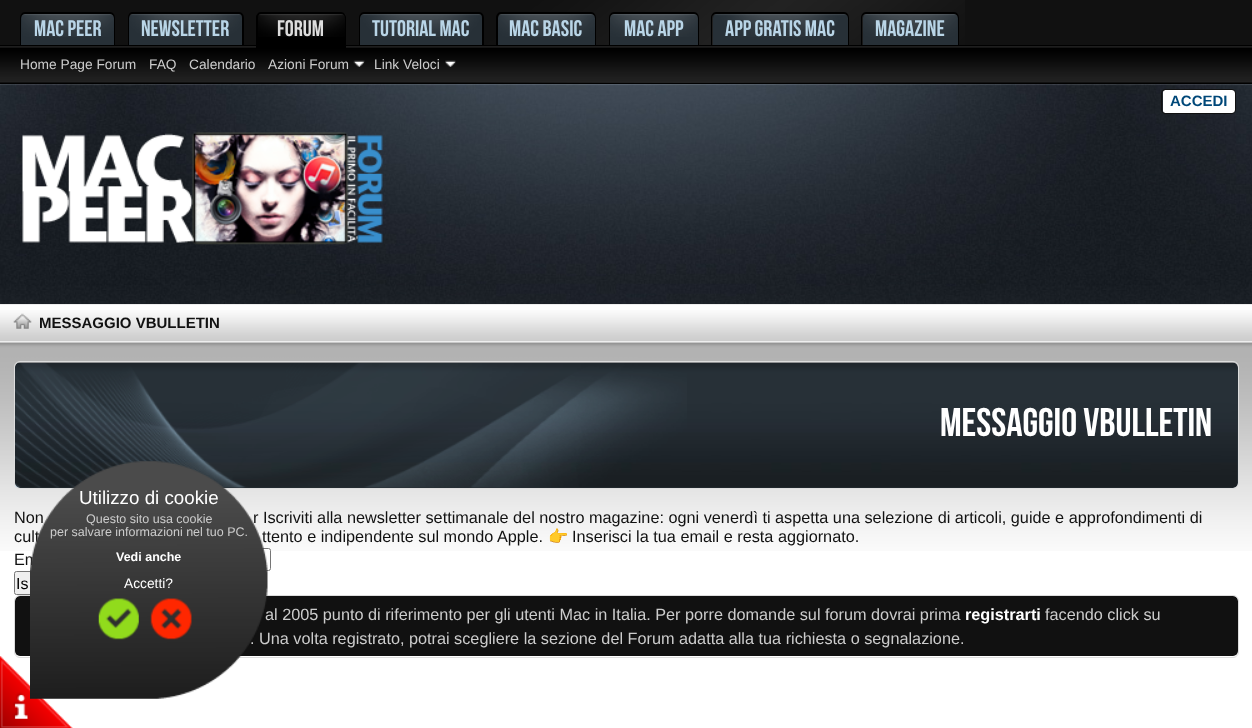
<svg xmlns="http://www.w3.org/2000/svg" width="1252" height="728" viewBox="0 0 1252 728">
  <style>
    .t1 { font: 22.5px Bebas Neue; fill: #b9d5e7; }
    .t2 { font: 22.5px Bebas Neue; fill: #ddd; }
    .t3 { font: 13.75px Liberation Sans; fill: #ccc; }
    .t4 { font: bold 15px Liberation Sans; fill: #004879; }
    .t5 { font: bold 15px Liberation Sans; fill: #111; }
    .t6 { font: 40px Bebas Neue; fill: #fff; }
    .t7 { font: 16.25px Liberation Sans; fill: #111; }
    .t8 { font: 16.25px Noto Color Emoji; fill: #111; }
    .t9 { font: 16px Liberation Sans; fill: #000; }
    .t10 { font: 16.25px Liberation Sans; fill: #ccc; }
    .t11 { font: bold 16.25px Liberation Sans; fill: #fff; }
    .t12 { font: 18.75px Liberation Sans; fill: #fff; }
    .t13 { font: 12.5px Liberation Sans; fill: #ccc; }
    .t14 { font: bold 12.5px Liberation Sans; fill: #fff; }
    .t15 { font: 13.75px Liberation Sans; fill: #fff; }
  </style>
  <rect width="100%" height="100%" fill="#111"/>
  <image x="290" y="0" width="675" height="83" href="images/1.png"/>
  <image x="0" y="45" width="1252" height="36" href="images/2.png"/>
  <rect x="0" y="81" width="1252" height="1" fill="#222"/>
  <path d="M25 14H110C112 14 114 16 114 18V45H21V18C21 16 23 14 25 14Z" fill="#273037"/>
  <image x="22" y="14" width="92" height="23" href="images/3.png"/>
  <path d="M25 12H110C113 12 115 15 115 18V45H20V18C20 15 22 12 25 12ZM25 14H110C112 14 114 15 114 18V45H21V18C21 15 23 14 25 14Z" fill="#000" fill-rule="evenodd"/>
  <text x="34" y="36" class="t1">MAC PEER</text>
  <path d="M133 14H239C241 14 243 16 243 18V45H129V18C129 16 131 14 133 14Z" fill="#273037"/>
  <image x="130" y="14" width="112" height="23" href="images/4.png"/>
  <path d="M132 12H239C242 12 244 15 244 18V45H128V18C128 15 130 12 132 12ZM132 14H239C241 14 242 15 242 18V45H129V18C129 15 130 14 132 14Z" fill="#000" fill-rule="evenodd"/>
  <text x="141" y="36" class="t1">NEWSLETTER</text>
  <path d="M261 13H341C344 13 346 15 346 18V49H256V18C256 15 258 13 261 13Z" fill="#000"/>
  <image x="256" y="13" width="90" height="24" href="images/5.png"/>
  <path d="M261 12H341C344 12 346 15 346 18V49H256V18C256 15 258 12 261 12ZM261 14H341C343 14 345 15 345 18V49H258V18C258 15 259 14 261 14Z" fill="#000" fill-rule="evenodd"/>
  <text x="277" y="36" class="t2">FORUM</text>
  <path d="M364 14H479C481 14 483 16 483 18V45H360V18C360 16 362 14 364 14Z" fill="#273037"/>
  <image x="361" y="14" width="121" height="23" href="images/6.png"/>
  <path d="M364 12H479C482 12 484 15 484 18V45H359V18C359 15 361 12 364 12ZM364 14H479C481 14 482 15 482 18V45H360V18C360 15 362 14 364 14Z" fill="#000" fill-rule="evenodd"/>
  <text x="372" y="36" class="t1">TUTORIAL MAC</text>
  <path d="M502 14H591C593 14 595 16 595 18V45H498V18C498 16 500 14 502 14Z" fill="#273037"/>
  <image x="498" y="14" width="97" height="23" href="images/7.png"/>
  <path d="M501 12H591C594 12 596 15 596 18V45H496V18C496 15 498 12 501 12ZM501 14H591C593 14 595 15 595 18V45H498V18C498 15 499 14 501 14Z" fill="#000" fill-rule="evenodd"/>
  <text x="509" y="36" class="t1">MAC BASIC</text>
  <path d="M614 14H694C696 14 698 16 698 18V45H610V18C610 16 612 14 614 14Z" fill="#273037"/>
  <image x="610" y="14" width="88" height="23" href="images/8.png"/>
  <path d="M614 12H694C697 12 699 15 699 18V45H609V18C609 15 611 12 614 12ZM614 14H694C696 14 698 15 698 18V45H610V18C610 15 612 14 614 14Z" fill="#000" fill-rule="evenodd"/>
  <text x="624" y="36" class="t1">MAC APP</text>
  <path d="M717 14H844C846 14 848 16 848 18V45H713V18C713 16 715 14 717 14Z" fill="#273037"/>
  <image x="714" y="14" width="132" height="23" href="images/9.png"/>
  <path d="M716 12H844C847 12 849 15 849 18V45H711V18C711 15 713 12 716 12ZM716 14H844C846 14 848 15 848 18V45H712V18C712 15 714 14 716 14Z" fill="#000" fill-rule="evenodd"/>
  <text x="725" y="36" class="t1">APP GRATIS MAC</text>
  <path d="M867 14H954C956 14 958 16 958 18V45H863V18C863 16 865 14 867 14Z" fill="#273037"/>
  <image x="863" y="14" width="94" height="23" href="images/10.png"/>
  <path d="M866 12H954C957 12 959 15 959 18V45H861V18C861 15 863 12 866 12ZM866 14H954C956 14 958 15 958 18V45H862V18C862 15 864 14 866 14Z" fill="#000" fill-rule="evenodd"/>
  <text x="875" y="36" class="t1">MAGAZINE</text>
  <text x="20" y="69" class="t3">Home Page Forum</text>
  <text x="149" y="69" class="t3">FAQ</text>
  <text x="189" y="69" class="t3">Calendario</text>
  <text x="268" y="69" class="t3">Azioni Forum</text>
  <image x="353" y="60" width="12" height="7" href="images/11.png"/>
  <text x="374" y="69" class="t3">Link Veloci</text>
  <image x="445" y="60" width="11" height="7" href="images/12.png"/>
  <image x="0" y="84" width="1252" height="220" href="images/13.png"/>
  <rect x="0" y="83" width="1252" height="1" fill="#000"/>
  <rect x="0" y="304" width="1252" height="1" fill="#eee"/>
  <rect x="1163" y="90" width="72" height="23" rx="2.5" fill="#fff"/>
  <rect x="1161.5" y="89.5" width="74" height="24" rx="3.5" fill="none" stroke="#111"/>
  <text x="1170" y="106" class="t4">ACCEDI</text>
  <image x="22" y="132" width="361" height="113" href="images/14.png"/>
  <rect x="0" y="305" width="1252" height="38" fill="#fff"/>
  <image x="0" y="310" width="1252" height="31" href="images/15.png"/>
  <rect x="0" y="341" width="1252" height="1" fill="#eee"/>
  <image x="13" y="313" width="19" height="16" href="images/16.png"/>
  <text x="39" y="328" class="t5">MESSAGGIO VBULLETIN</text>
  <rect x="0" y="551" width="1252" height="177" fill="#fff"/>
  <image x="0" y="342" width="1252" height="209" href="images/17.png"/>
  <rect x="15" y="363" width="1223" height="125" rx="5" fill="#273037"/>
  <image x="15" y="362" width="1223" height="126" href="images/18.png"/>
  <rect x="14.5" y="361.5" width="1224" height="127" rx="5.5" fill="none" stroke="#ddd"/>
  <image x="15" y="363" width="672" height="125" href="images/19.png"/>
  <text x="940" y="436" class="t6">MESSAGGIO VBULLETIN</text>
  <text x="14" y="523" class="t7">Non</text>
  <text x="253" y="523" class="t7">r Iscriviti alla newsletter settimanale del nostro magazine: ogni venerdì ti aspetta una selezione di articoli, guide e approfondimenti di</text>
  <text x="14" y="542" class="t7">cult</text>
  <text x="262" y="542" class="t7">ttento e indipendente sul mondo Apple.</text>
  <text x="548" y="542" class="t8">👉</text>
  <text x="572" y="542" class="t7">Inserisci la tua email e resta aggiornato.</text>
  <text x="14" y="565" class="t7">Em</text>
  <rect x="59.5" y="548.5" width="211" height="22" rx="2" fill="#fff" stroke="#767676"/>
  <rect x="14.5" y="571.5" width="53" height="23" rx="2" fill="#efefef" stroke="#767676"/>
  <text x="16" y="589" class="t9">Is</text>
  <rect x="15" y="596" width="1223" height="60" rx="5" fill="#111"/>
  <rect x="14.5" y="595.5" width="1224" height="62" rx="5.5" fill="none" stroke="#ddd"/>
  <text x="265" y="620" class="t10">al 2005 punto di riferimento per gli utenti Mac in Italia. Per porre domande sul forum dovrai prima</text>
  <text x="965" y="620" class="t11">registrarti</text>
  <text x="1045" y="620" class="t10">facendo click su</text>
  <text x="250" y="644" class="t10">. Una volta registrato, potrai scegliere la sezione del Forum adatta alla tua richiesta o segnalazione.</text>
  <image x="0" y="656" width="73" height="72" href="images/23.png"/>
  <image x="30" y="461" width="238" height="238" href="images/20.png"/>
  <text x="79" y="504" class="t12">Utilizzo di cookie</text>
  <text x="86" y="523" class="t13">Questo sito usa cookie</text>
  <text x="50" y="536" class="t13">per salvare informazioni nel tuo PC.</text>
  <text x="116" y="561" class="t14">Vedi anche</text>
  <text x="124" y="588" class="t15">Accetti?</text>
  <image x="98" y="598" width="41" height="42" href="images/21.png"/>
  <image x="150" y="598" width="42" height="42" href="images/22.png"/>
</svg>
